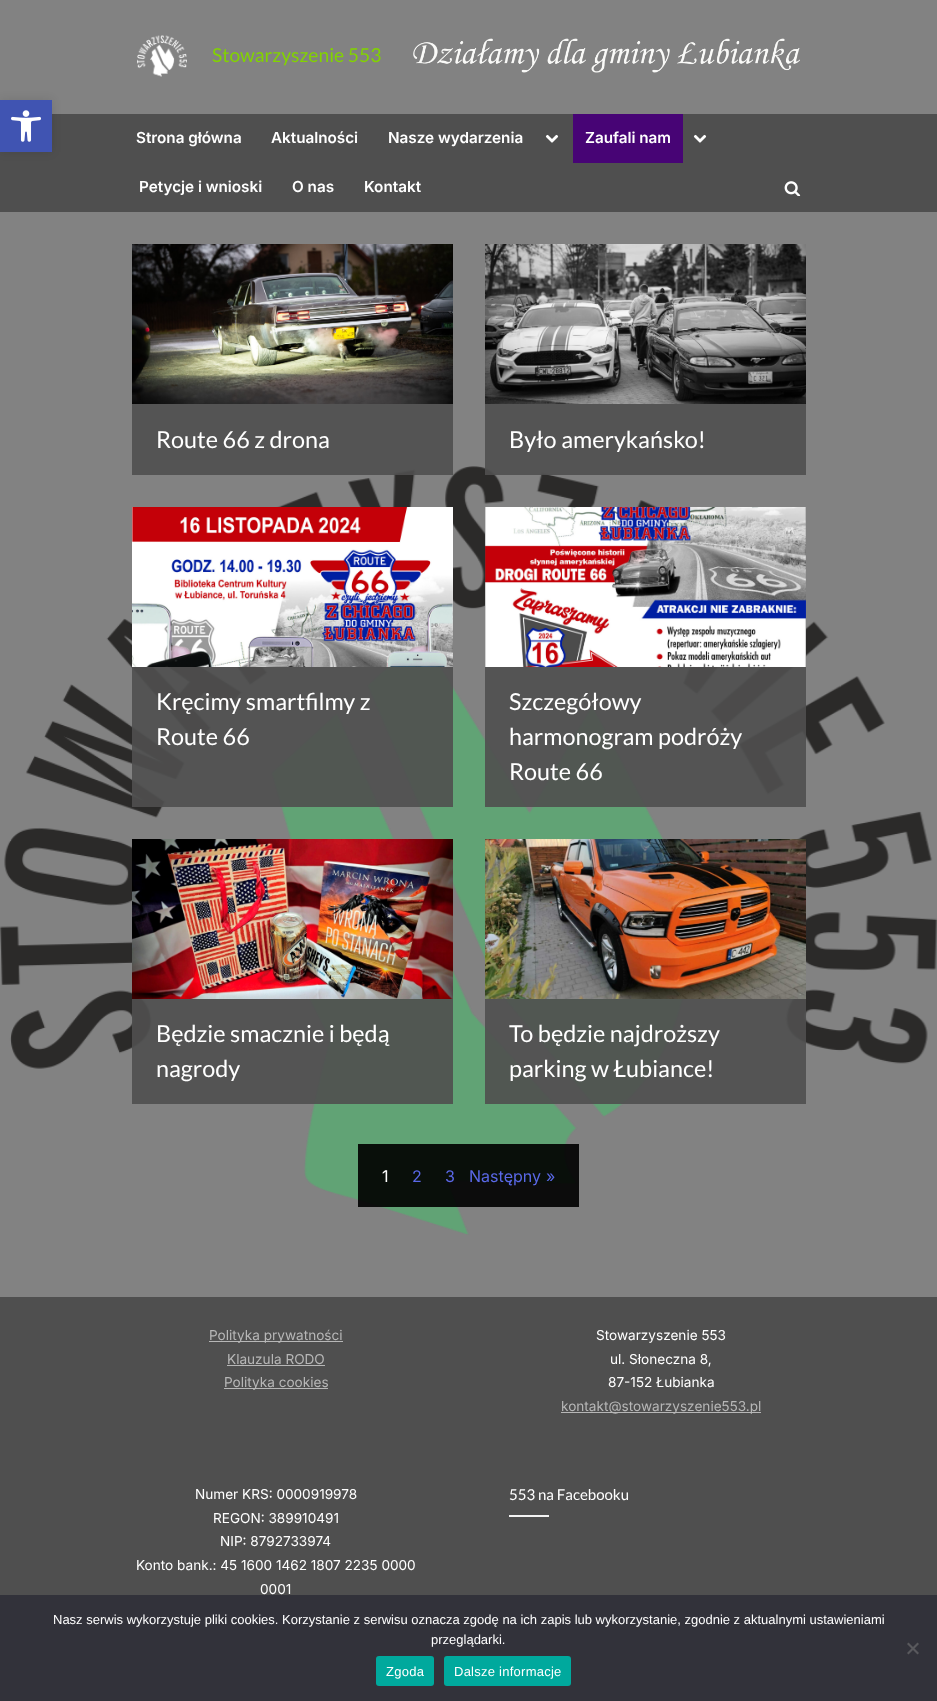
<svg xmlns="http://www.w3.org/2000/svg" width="937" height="1701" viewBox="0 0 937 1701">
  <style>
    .t1 { font: 19.25px Lato; fill: #82d300; }
    .t2 { font: 600 15.25px Inter; fill: #fff; }
    .t3 { font: 23.4px Lato; fill: #fff; }
    .t4 { font: 16px Inter; fill: #fff; }
    .t5 { font: 16px Inter; fill: #5a68e7; }
    .t6 { font: 13.6px Inter; fill: #b7b7b7; }
    .t7 { font: 13.6px Inter; fill: #fff; }
    .t8 { font: 15px Lato; fill: #fff; }
    .t9 { font: 13px Liberation Sans; fill: #fff; }
    .t10 { font: 13px Liberation Sans; letter-spacing: 0.25px; fill: #fff; }
  </style>
  <rect width="100%" height="100%" fill="#828282"/>
  <image x="0" y="466" width="937" height="769" href="images/1.png"/>
  <rect x="0" y="114" width="937" height="98" fill="#4f4f4f"/>
  <rect x="0" y="100" width="52" height="52" fill="#0000001a" filter="blur(5px)"/>
  <rect x="0" y="100" width="52" height="52" fill="#4054b2"/>
  <image x="11" y="110" width="30" height="32" href="images/2.png"/>
  <image x="137" y="35" width="50" height="42" href="images/3.png"/>
  <text x="212" y="62" class="t1">Stowarzyszenie 553</text>
  <image x="413" y="38" width="387" height="35" href="images/4.png"/>
  <text x="136" y="143" class="t2">Strona główna</text>
  <text x="271" y="143" class="t2">Aktualności</text>
  <text x="388" y="143" class="t2">Nasze wydarzenia</text>
  <image x="545" y="134" width="14" height="9" href="images/5.png"/>
  <rect x="573" y="114" width="110" height="49" fill="#470475"/>
  <text x="585" y="143" class="t2">Zaufali nam</text>
  <image x="693" y="134" width="14" height="9" href="images/5.png"/>
  <text x="139" y="192" class="t2">Petycje i wnioski</text>
  <text x="292" y="192" class="t2">O nas</text>
  <text x="364" y="192" class="t2">Kontakt</text>
  <image x="784" y="181" width="17" height="15" href="images/6.png"/>
  <rect x="132" y="404" width="321" height="71" fill="#4f4f4fe8"/>
  <image x="132" y="244" width="321" height="160" href="images/7.png"/>
  <text x="156" y="448" class="t3">Route 66 z drona</text>
  <rect x="485" y="404" width="321" height="71" fill="#4f4f4fe8"/>
  <image x="485" y="244" width="321" height="160" href="images/8.png"/>
  <text x="509" y="448" class="t3">Było amerykańsko!</text>
  <rect x="132" y="667" width="321" height="140" fill="#4f4f4fe8"/>
  <image x="132" y="507" width="321" height="160" href="images/9.png"/>
  <text x="156" y="710" class="t3">Kręcimy smartfilmy z</text>
  <text x="156" y="745" class="t3">Route 66</text>
  <rect x="485" y="667" width="321" height="140" fill="#4f4f4fe8"/>
  <image x="485" y="507" width="321" height="160" href="images/10.png"/>
  <text x="509" y="710" class="t3">Szczegółowy</text>
  <text x="509" y="745" class="t3">harmonogram podróży</text>
  <text x="509" y="780" class="t3">Route 66</text>
  <rect x="132" y="999" width="321" height="105" fill="#4f4f4fe8"/>
  <image x="132" y="839" width="321" height="160" href="images/11.png"/>
  <text x="156" y="1042" class="t3">Będzie smacznie i będą</text>
  <text x="156" y="1077" class="t3">nagrody</text>
  <rect x="485" y="999" width="321" height="105" fill="#4f4f4fe8"/>
  <image x="485" y="839" width="321" height="160" href="images/12.png"/>
  <text x="509" y="1042" class="t3">To będzie najdroższy</text>
  <text x="509" y="1077" class="t3">parking w Łubiance!</text>
  <rect x="358" y="1144" width="221" height="63" fill="#000000e8"/>
  <text x="382" y="1182" class="t4">1</text>
  <text x="412" y="1182" class="t5">2</text>
  <text x="445" y="1182" class="t5">3</text>
  <text x="469" y="1182" class="t5">Następny</text>
  <text x="546" y="1182" class="t5">»</text>
  <rect x="0" y="1297" width="937" height="298" fill="#4f4f4f"/>
  <rect x="209" y="1341" width="134" height="1" fill="#b7b7b7"/>
  <text x="209" y="1340" class="t6">Polityka prywatności</text>
  <text x="227" y="1364" class="t6">Klauzula RODO</text>
  <rect x="227" y="1365" width="98" height="1" fill="#b7b7b7"/>
  <rect x="224" y="1388" width="104" height="1" fill="#b7b7b7"/>
  <text x="224" y="1387" class="t6">Polityka cookies</text>
  <text x="596" y="1340" class="t7">Stowarzyszenie 553</text>
  <text x="610" y="1364" class="t7">ul. Słoneczna 8,</text>
  <text x="608" y="1387" class="t7">87-152 Łubianka</text>
  <rect x="561" y="1412" width="200" height="1" fill="#b7b7b7"/>
  <text x="561" y="1411" class="t6">kontakt@stowarzyszenie553.pl</text>
  <text x="195" y="1499" class="t7">Numer KRS: 0000919978</text>
  <text x="213" y="1523" class="t7">REGON: 389910491</text>
  <text x="220" y="1546" class="t7">NIP: 8792733974</text>
  <text x="136" y="1570" class="t7">Konto bank.: 45 1600 1462 1807 2235 0000</text>
  <text x="260" y="1594" class="t7">0001</text>
  <text x="509" y="1500" class="t8">553 na Facebooku</text>
  <rect x="509" y="1515" width="40" height="2" fill="#f4f4f4"/>
  <rect x="0" y="1595" width="937" height="106" fill="#32323a"/>
  <text x="53" y="1624" class="t9">Nasz serwis wykorzystuje pliki cookies. Korzystanie z serwisu oznacza zgodę na ich zapis lub wykorzystanie, zgodnie z aktualnymi ustawieniami</text>
  <text x="431" y="1644" class="t9">przeglądarki.</text>
  <path d="M917.5 1642.5L919 1644L908.5 1654.5L907 1653Z" fill="#59595d"/>
  <path d="M907 1644L908.5 1642.5L919 1653L917.5 1654.5Z" fill="#59595d"/>
  <rect x="376" y="1656" width="58" height="30" rx="3" fill="#00a99d"/>
  <text x="386" y="1676" class="t10">Zgoda</text>
  <rect x="444" y="1656" width="127" height="30" rx="3" fill="#00a99d"/>
  <text x="454" y="1676" class="t10">Dalsze informacje</text>
</svg>
